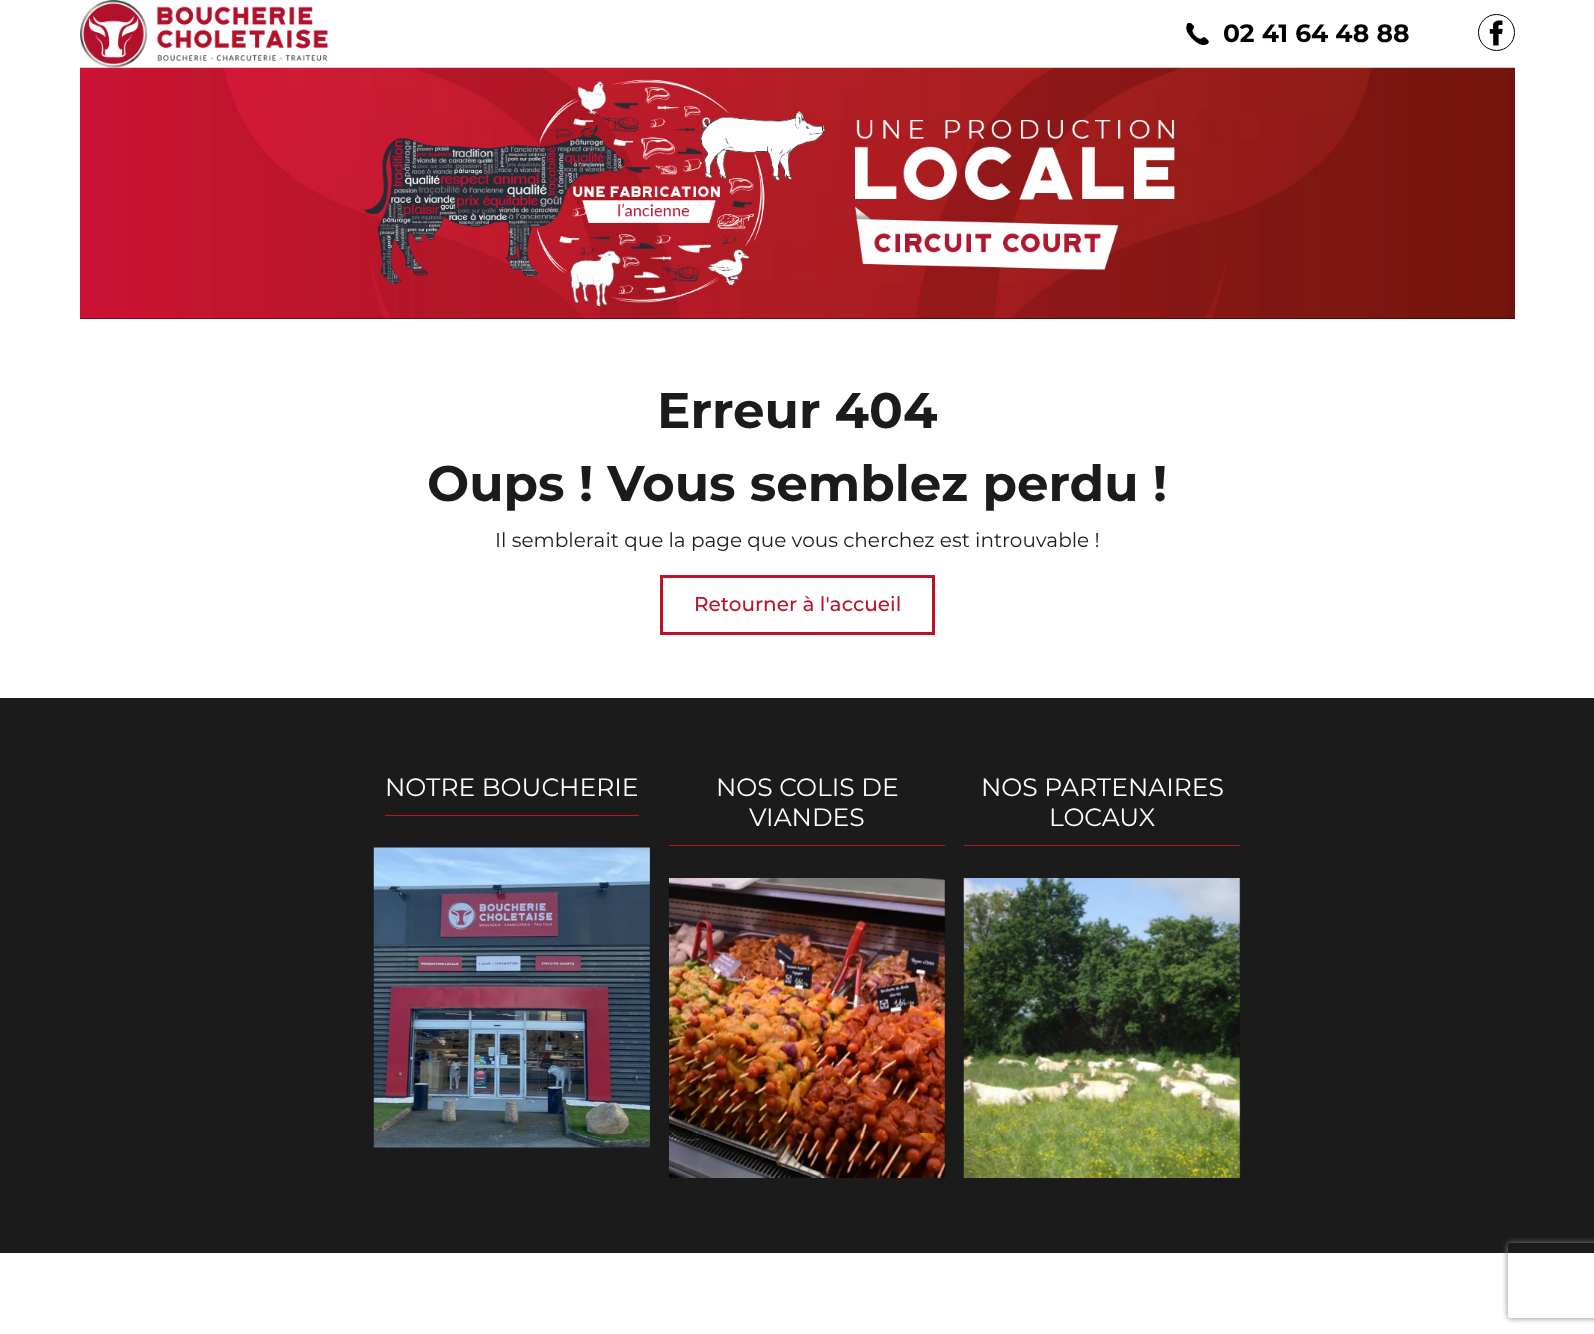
<svg xmlns="http://www.w3.org/2000/svg" width="1594" height="1334" viewBox="0 0 1594 1334">
  <style>
    .t1 { font: bold 25px Montserrat; fill: #000; }
    .t2 { font: bold 50px Montserrat; fill: #1b1b1b; }
    .t3 { font: 20px Montserrat; fill: #1b1b1b; }
    .t4 { font: 500 20px Montserrat; fill: #ba142c; }
    .t5 { font: 25px 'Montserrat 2'; fill: #fff; }
  </style>
  <defs>
    <clipPath id="clip1"><path d="M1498 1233H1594V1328H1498ZM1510.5 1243H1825.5C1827 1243 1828 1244 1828 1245.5V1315.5C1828 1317 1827 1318 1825.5 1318H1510.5C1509 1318 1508 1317 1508 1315.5V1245.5C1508 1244 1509 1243 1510.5 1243Z" clip-rule="evenodd"/></clipPath>
  </defs>
  <rect width="100%" height="100%" fill="#fff"/>
  <image x="80" y="0" width="248" height="68" href="images/1.png"/>
  <image x="1186" y="23" width="23" height="22" href="images/2.png"/>
  <text x="1223" y="42" class="t1">02 41 64 48 88</text>
  <circle cx="1496.5" cy="32.5" r="18" fill="none" stroke="#000"/>
  <image x="1489" y="20" width="14" height="26" href="images/3.png"/>
  <rect x="80" y="318" width="1435" height="1" fill="#000"/>
  <image x="80" y="67" width="1435" height="252" href="images/4.png"/>
  <text x="657" y="428" class="t2">Erreur 404</text>
  <text x="427" y="501" class="t2">Oups ! Vous semblez perdu !</text>
  <text x="495" y="547" class="t3">Il semblerait que la page que vous cherchez est introuvable !</text>
  <rect x="661.5" y="576.5" width="272" height="57" fill="none" stroke="#ba142c" stroke-width="3"/>
  <text x="694" y="611" class="t4">Retourner à l'accueil</text>
  <rect x="0" y="698" width="1594" height="555" fill="#1b1b1b"/>
  <rect x="385" y="815" width="254" height="1" fill="#ba142c"/>
  <text x="385" y="796" class="t5">NOTRE BOUCHERIE</text>
  <image x="373" y="847" width="277" height="301" href="images/5.png"/>
  <rect x="669" y="845" width="276" height="1" fill="#ba142c"/>
  <text x="716" y="796" class="t5">NOS COLIS DE</text>
  <text x="749" y="826" class="t5">VIANDES</text>
  <image x="669" y="878" width="277" height="300" href="images/6.png"/>
  <rect x="964" y="845" width="276" height="1" fill="#ba142c"/>
  <text x="981" y="796" class="t5">NOS PARTENAIRES</text>
  <text x="1049" y="826" class="t5">LOCAUX</text>
  <image x="963" y="878" width="278" height="300" href="images/7.png"/>
  <g clip-path="url(#clip1)">
    <rect x="1508" y="1243" width="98" height="75" rx="2.5" fill="#808080" filter="blur(3px)"/>
  </g>
</svg>
